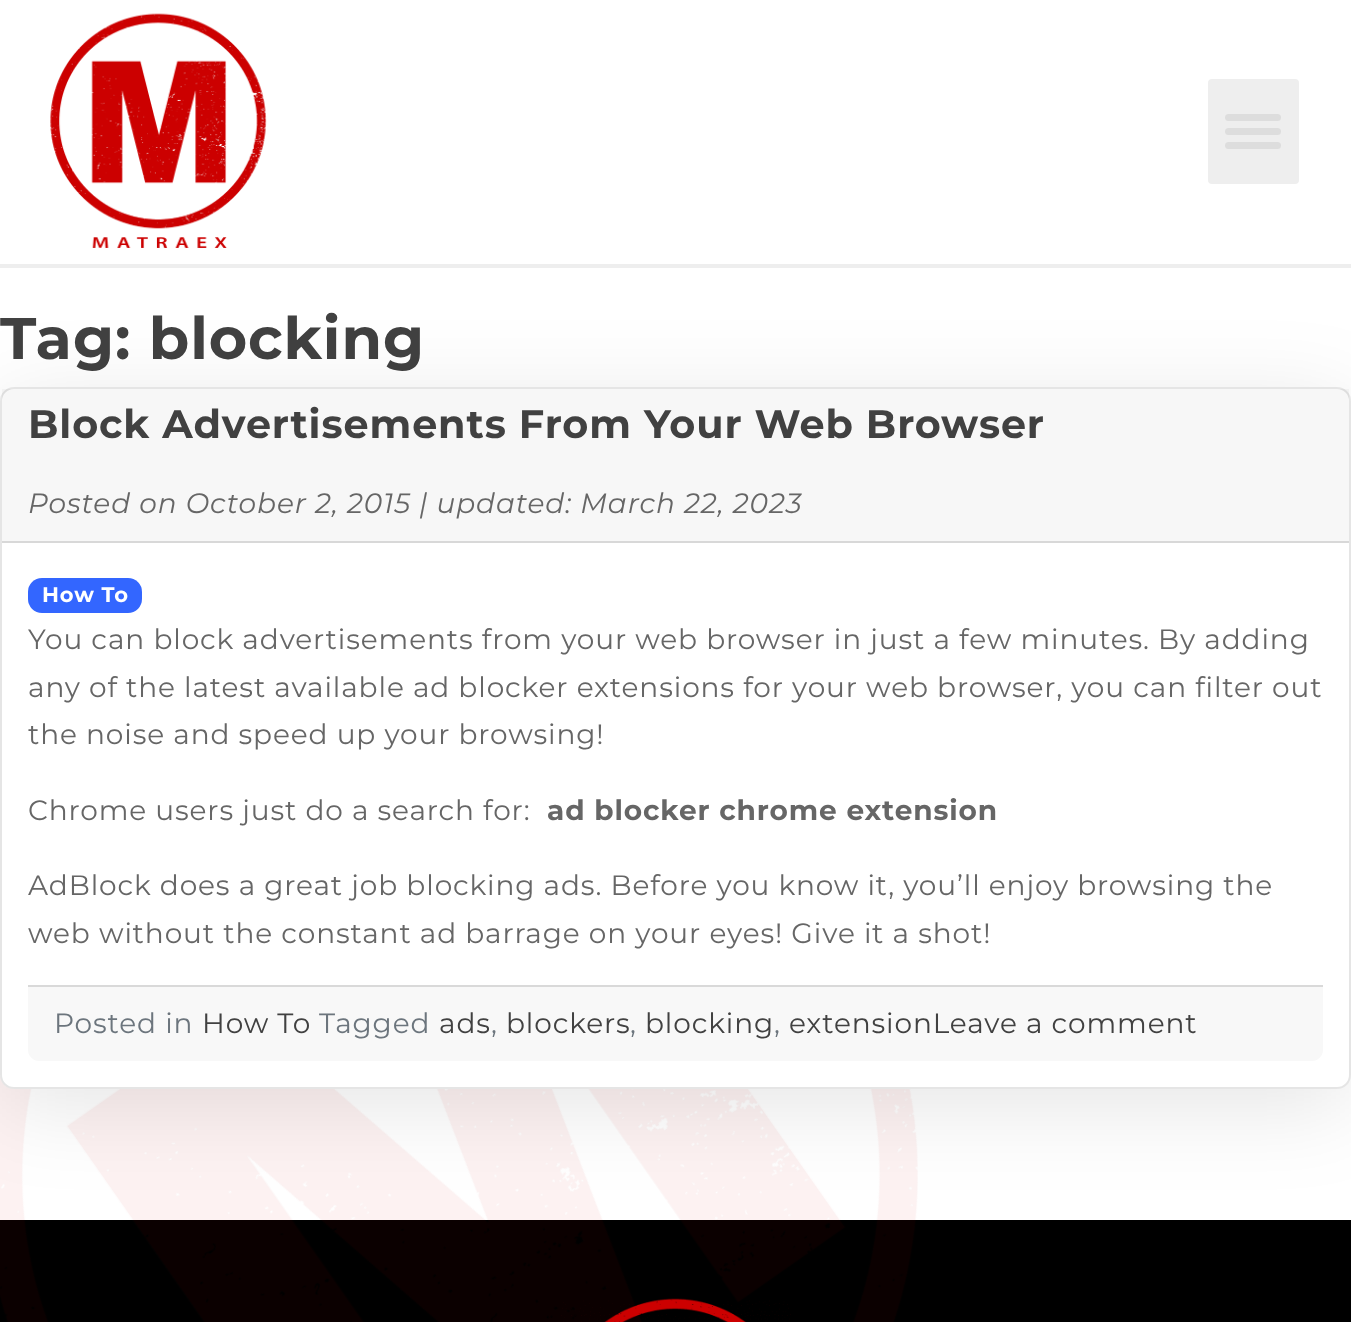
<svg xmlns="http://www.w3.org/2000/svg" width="1351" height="1322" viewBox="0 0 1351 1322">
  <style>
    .t1 { font: bold 58.75px Montserrat; letter-spacing: 0.88px; fill: #414141; }
    .t2 { font: bold 39.75px Montserrat; letter-spacing: 0.88px; fill: #414141; }
    .t3 { font: italic 28px Montserrat; letter-spacing: 0.88px; fill: #666; }
    .t4 { font: bold 21px Montserrat; letter-spacing: 0.88px; fill: #fff; }
    .t5 { font: 28px Montserrat; letter-spacing: 0.88px; fill: #666; }
    .t6 { font: bold 28px Montserrat; letter-spacing: 0.88px; fill: #666; }
    .t7 { font: 28px Montserrat; letter-spacing: 0.88px; fill: #6c757d; }
    .t8 { font: 28px Montserrat; letter-spacing: 0.88px; fill: #414141; }
  </style>
  <rect width="100%" height="100%" fill="#fff"/>
  <rect x="0" y="264" width="1351" height="4" fill="#eee"/>
  <image x="50" y="13" width="217" height="235" href="images/1.png"/>
  <rect x="1208" y="79" width="91" height="105" rx="4" fill="#eee"/>
  <rect x="1225" y="114" width="56" height="7" rx="3.5" fill="#ddd"/>
  <rect x="1225" y="128" width="56" height="7" rx="3.5" fill="#ddd"/>
  <rect x="1225" y="142" width="56" height="7" rx="3.5" fill="#ddd"/>
  <text x="0" y="359" class="t1">Tag: blocking</text>
  <rect x="0" y="1220" width="1351" height="102" fill="#000"/>
  <image x="0" y="1075" width="918" height="247" href="images/3.png"/>
  <rect x="0" y="404" width="1351" height="702" rx="14" fill="#0000001a" filter="blur(44px)"/>
  <rect x="0" y="387" width="1351" height="702" rx="14" fill="#fff"/>
  <rect x="1" y="388" width="1349" height="700" rx="13" fill="none" stroke="#0000001a" stroke-width="2"/>
  <rect x="2" y="389" width="1347" height="152" fill="#00000008"/>
  <rect x="2" y="541" width="1347" height="2" fill="#d8d8d8"/>
  <text x="28" y="438" class="t2">Block Advertisements From Your Web Browser</text>
  <text x="28" y="513" class="t3">Posted on October 2, 2015 | updated: March 22, 2023</text>
  <rect x="28" y="578" width="114" height="35" rx="14" fill="#36f"/>
  <text x="42" y="602" class="t4">How To</text>
  <text x="28" y="649" class="t5">You can block advertisements from your web browser in just a few minutes. By adding</text>
  <text x="28" y="697" class="t5">any of the latest available ad blocker extensions for your web browser, you can filter out</text>
  <text x="28" y="744" class="t5">the noise and speed up your browsing!</text>
  <text x="28" y="820" class="t5">Chrome users just do a search for:</text>
  <text x="547" y="820" class="t6">ad blocker chrome extension</text>
  <text x="28" y="895" class="t5">AdBlock does a great job blocking ads. Before you know it, you’ll enjoy browsing the</text>
  <text x="28" y="943" class="t5">web without the constant ad barrage on your eyes! Give it a shot!</text>
  <path d="M28 985H1323V1050C1323 1056 1318 1061 1312 1061H39C33 1061 28 1056 28 1050Z" fill="#f8f8f8"/>
  <rect x="28" y="985" width="1295" height="2" fill="#d9d9d9"/>
  <text x="54" y="1033" class="t7">Posted in</text>
  <text x="202" y="1033" class="t8">How To</text>
  <text x="319" y="1033" class="t7">Tagged</text>
  <text x="439" y="1033" class="t8">ads</text>
  <text x="491" y="1033" class="t7">,</text>
  <text x="506" y="1033" class="t8">blockers</text>
  <text x="630" y="1033" class="t7">,</text>
  <text x="645" y="1033" class="t8">blocking</text>
  <text x="774" y="1033" class="t7">,</text>
  <text x="789" y="1033" class="t8">extensionLeave a comment</text>
  <image x="561" y="1298" width="230" height="24" href="images/2.png"/>
</svg>
